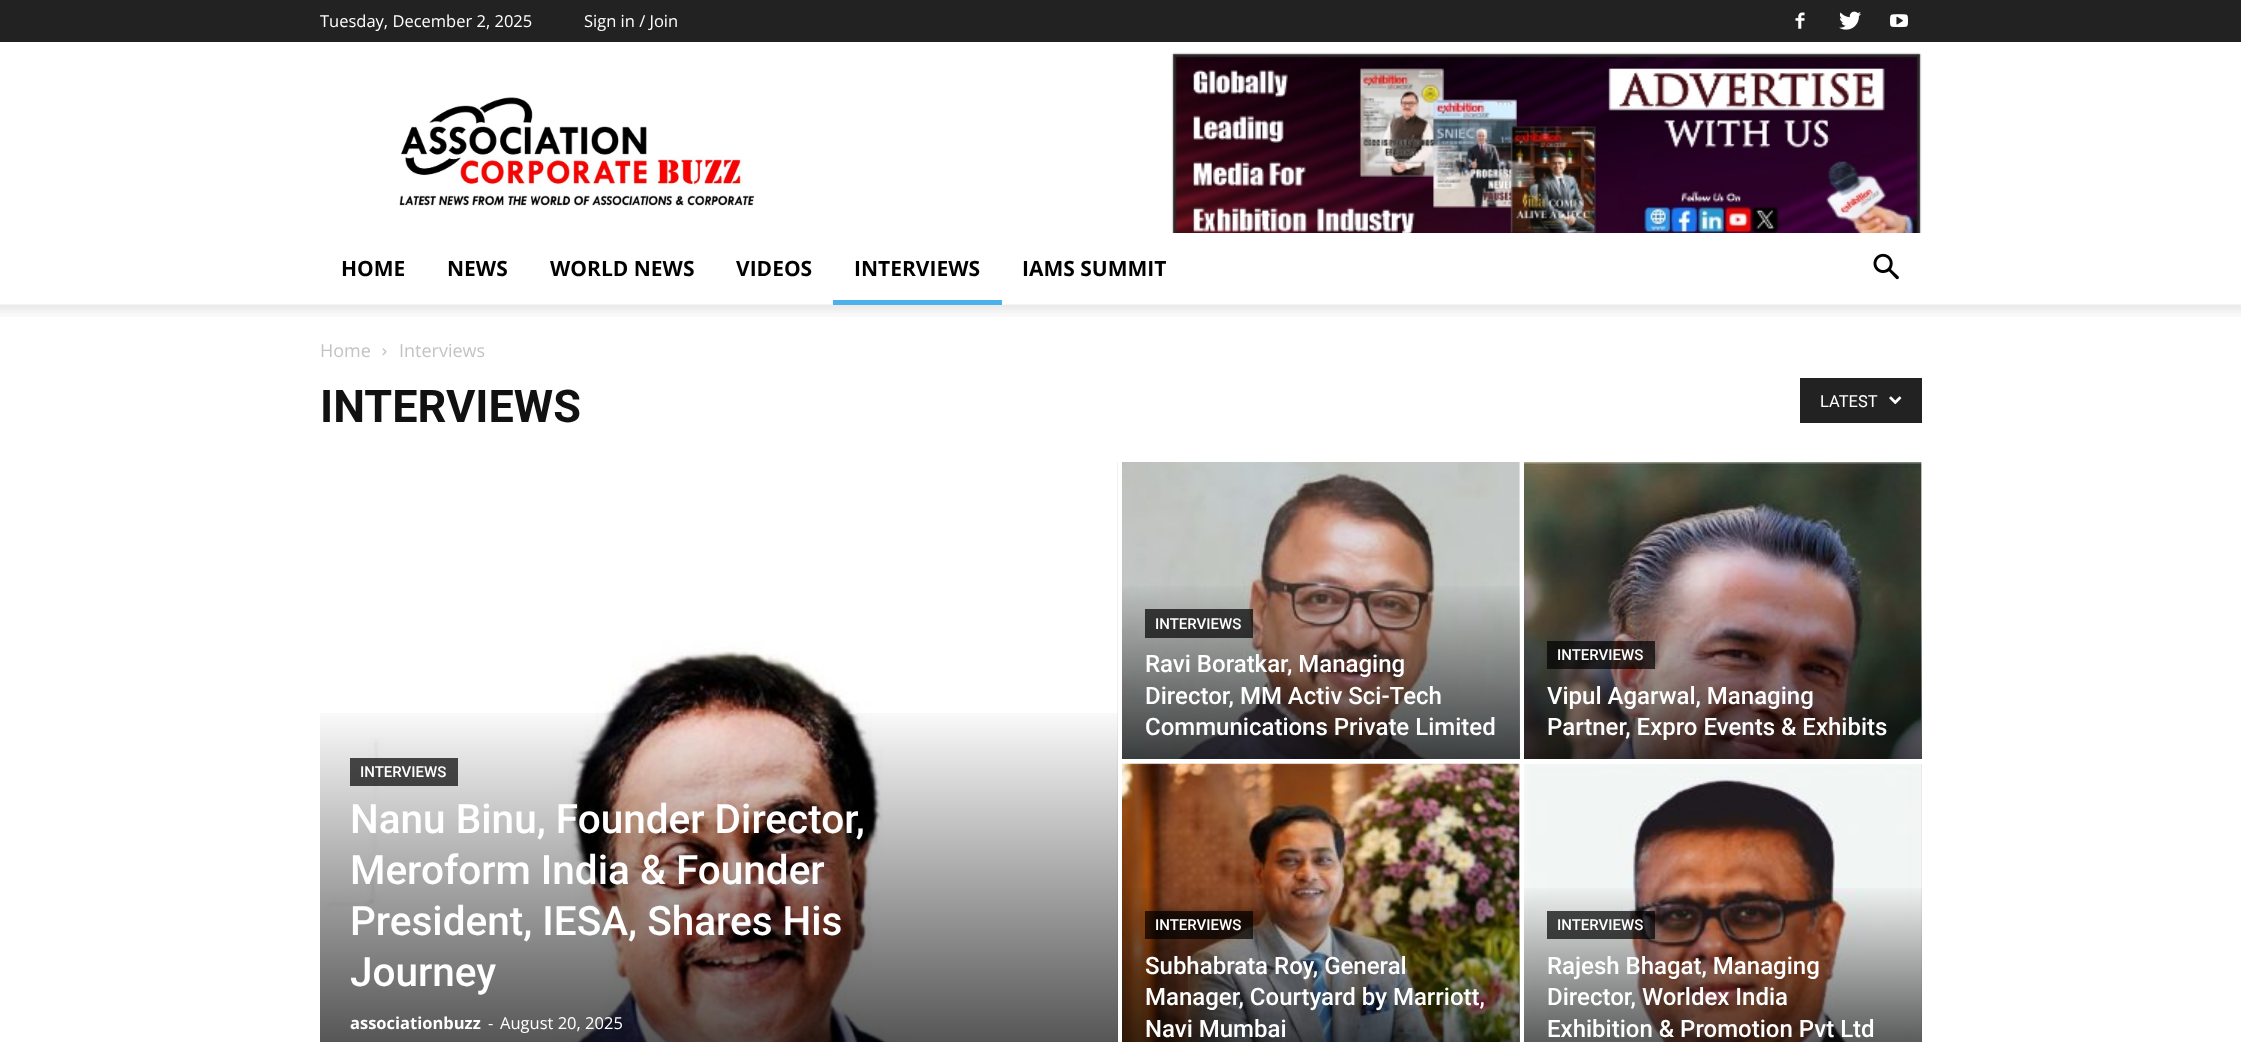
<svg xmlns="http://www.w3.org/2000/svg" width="2241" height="1042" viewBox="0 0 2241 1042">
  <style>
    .t1 { font: 16.5px Open Sans; fill: #fff; }
    .t2 { font: bold 21px Open Sans; fill: #000; }
    .t3 { font: 18px Open Sans; fill: #c3c3c3; }
    .t4 { font: bold 45px Roboto; fill: #111; }
    .t5 { font: 16.5px Roboto; fill: #fff; }
    .t6 { font: 500 15px Roboto; fill: #fff; }
    .t7 { font: 500 40.5px Roboto; fill: #fff; }
    .t8 { font: bold 16.5px Open Sans; fill: #fff; }
    .t9 { font: 500 24px Roboto; fill: #fff; }
  </style>
  <defs>
    <linearGradient id="g1" gradientUnits="userSpaceOnUse" x1="719" y1="462" x2="719" y2="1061"><stop offset="0.4" stop-color="#000" stop-opacity="0"/><stop offset="1" stop-color="#000" stop-opacity="0.7"/></linearGradient>
    <linearGradient id="g2" gradientUnits="userSpaceOnUse" x1="1321" y1="462" x2="1321" y2="759"><stop offset="0.4" stop-color="#000" stop-opacity="0"/><stop offset="1" stop-color="#000" stop-opacity="0.7"/></linearGradient>
    <linearGradient id="g3" gradientUnits="userSpaceOnUse" x1="1723" y1="462" x2="1723" y2="759"><stop offset="0.4" stop-color="#000" stop-opacity="0"/><stop offset="1" stop-color="#000" stop-opacity="0.7"/></linearGradient>
    <linearGradient id="g4" gradientUnits="userSpaceOnUse" x1="1321" y1="764" x2="1321" y2="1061"><stop offset="0.4" stop-color="#000" stop-opacity="0"/><stop offset="1" stop-color="#000" stop-opacity="0.7"/></linearGradient>
    <linearGradient id="g5" gradientUnits="userSpaceOnUse" x1="1723" y1="764" x2="1723" y2="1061"><stop offset="0.4" stop-color="#000" stop-opacity="0"/><stop offset="1" stop-color="#000" stop-opacity="0.7"/></linearGradient>
  </defs>
  <rect width="100%" height="100%" fill="#fff"/>
  <rect x="0" y="0" width="2241" height="42" fill="#222"/>
  <text x="320" y="27" class="t1">Tuesday, December 2, 2025</text>
  <text x="584" y="27" class="t1">Sign in / Join</text>
  <image x="1795" y="12" width="10" height="17" href="images/1.png"/>
  <image x="1839" y="11" width="22" height="19" href="images/2.png"/>
  <image x="1890" y="14" width="18" height="14" href="images/3.png"/>
  <image x="399" y="97" width="356" height="109" href="images/4.png"/>
  <image x="1171" y="52" width="751" height="181" href="images/5.png"/>
  <text x="341" y="276" class="t2">HOME</text>
  <text x="447" y="276" class="t2">NEWS</text>
  <text x="550" y="276" class="t2">WORLD NEWS</text>
  <text x="736" y="276" class="t2">VIDEOS</text>
  <text x="854" y="276" class="t2">INTERVIEWS</text>
  <image x="0" y="304" width="2241" height="13" href="images/7.png"/>
  <rect x="833" y="300" width="169" height="5" fill="#4db2ec"/>
  <text x="1022" y="276" class="t2">IAMS SUMMIT</text>
  <image x="1873" y="253" width="26" height="27" href="images/6.png"/>
  <text x="320" y="357" class="t3">Home</text>
  <image x="382" y="348" width="5" height="8" href="images/8.png"/>
  <text x="399" y="357" class="t3">Interviews</text>
  <text x="320" y="422" class="t4">INTERVIEWS</text>
  <rect x="1800" y="378" width="122" height="45" fill="#222"/>
  <text x="1820" y="407" class="t5">LATEST</text>
  <image x="1889" y="396" width="13" height="9" href="images/9.png"/>
  <rect x="1117" y="462" width="1" height="580" fill="#e5e5e5"/>
  <image x="320" y="462" width="798" height="580" href="images/10.png"/>
  <rect x="320" y="713" width="798" height="329" fill="url(#g1)"/>
  <rect x="350" y="758" width="108" height="28" fill="#000000b3"/>
  <text x="360" y="777" class="t6">INTERVIEWS</text>
  <text x="350" y="833" class="t7">Nanu Binu, Founder Director,</text>
  <text x="350" y="884" class="t7">Meroform India &amp; Founder</text>
  <text x="350" y="935" class="t7">President, IESA, Shares His</text>
  <text x="350" y="986" class="t7">Journey</text>
  <text x="350" y="1029" class="t8">associationbuzz</text>
  <text x="488" y="1029" class="t1">-</text>
  <text x="500" y="1029" class="t1">August 20, 2025</text>
  <rect x="1519" y="462" width="1" height="297" fill="#e5e5e5"/>
  <image x="1122" y="462" width="398" height="297" href="images/11.png"/>
  <rect x="1122" y="586" width="398" height="173" fill="url(#g2)"/>
  <rect x="1145" y="609" width="108" height="29" fill="#000000b3"/>
  <text x="1155" y="629" class="t6">INTERVIEWS</text>
  <text x="1145" y="672" class="t9">Ravi Boratkar, Managing</text>
  <text x="1145" y="704" class="t9">Director, MM Activ Sci-Tech</text>
  <text x="1145" y="735" class="t9">Communications Private Limited</text>
  <rect x="1921" y="462" width="1" height="297" fill="#e5e5e5"/>
  <image x="1524" y="462" width="398" height="297" href="images/12.png"/>
  <rect x="1524" y="586" width="398" height="173" fill="url(#g3)"/>
  <rect x="1547" y="641" width="108" height="28" fill="#000000b3"/>
  <text x="1557" y="660" class="t6">INTERVIEWS</text>
  <text x="1547" y="704" class="t9">Vipul Agarwal, Managing</text>
  <text x="1547" y="735" class="t9">Partner, Expro Events &amp; Exhibits</text>
  <rect x="1519" y="764" width="1" height="278" fill="#e5e5e5"/>
  <image x="1122" y="763" width="398" height="279" href="images/13.png"/>
  <rect x="1122" y="888" width="398" height="154" fill="url(#g4)"/>
  <rect x="1145" y="911" width="108" height="28" fill="#000000b3"/>
  <text x="1155" y="930" class="t6">INTERVIEWS</text>
  <text x="1145" y="974" class="t9">Subhabrata Roy, General</text>
  <text x="1145" y="1005" class="t9">Manager, Courtyard by Marriott,</text>
  <text x="1145" y="1037" class="t9">Navi Mumbai</text>
  <rect x="1921" y="764" width="1" height="278" fill="#e5e5e5"/>
  <image x="1524" y="764" width="398" height="278" href="images/14.png"/>
  <rect x="1524" y="888" width="398" height="154" fill="url(#g5)"/>
  <rect x="1547" y="911" width="108" height="28" fill="#000000b3"/>
  <text x="1557" y="930" class="t6">INTERVIEWS</text>
  <text x="1547" y="974" class="t9">Rajesh Bhagat, Managing</text>
  <text x="1547" y="1005" class="t9">Director, Worldex India</text>
  <text x="1547" y="1037" class="t9">Exhibition &amp; Promotion Pvt Ltd</text>
</svg>
